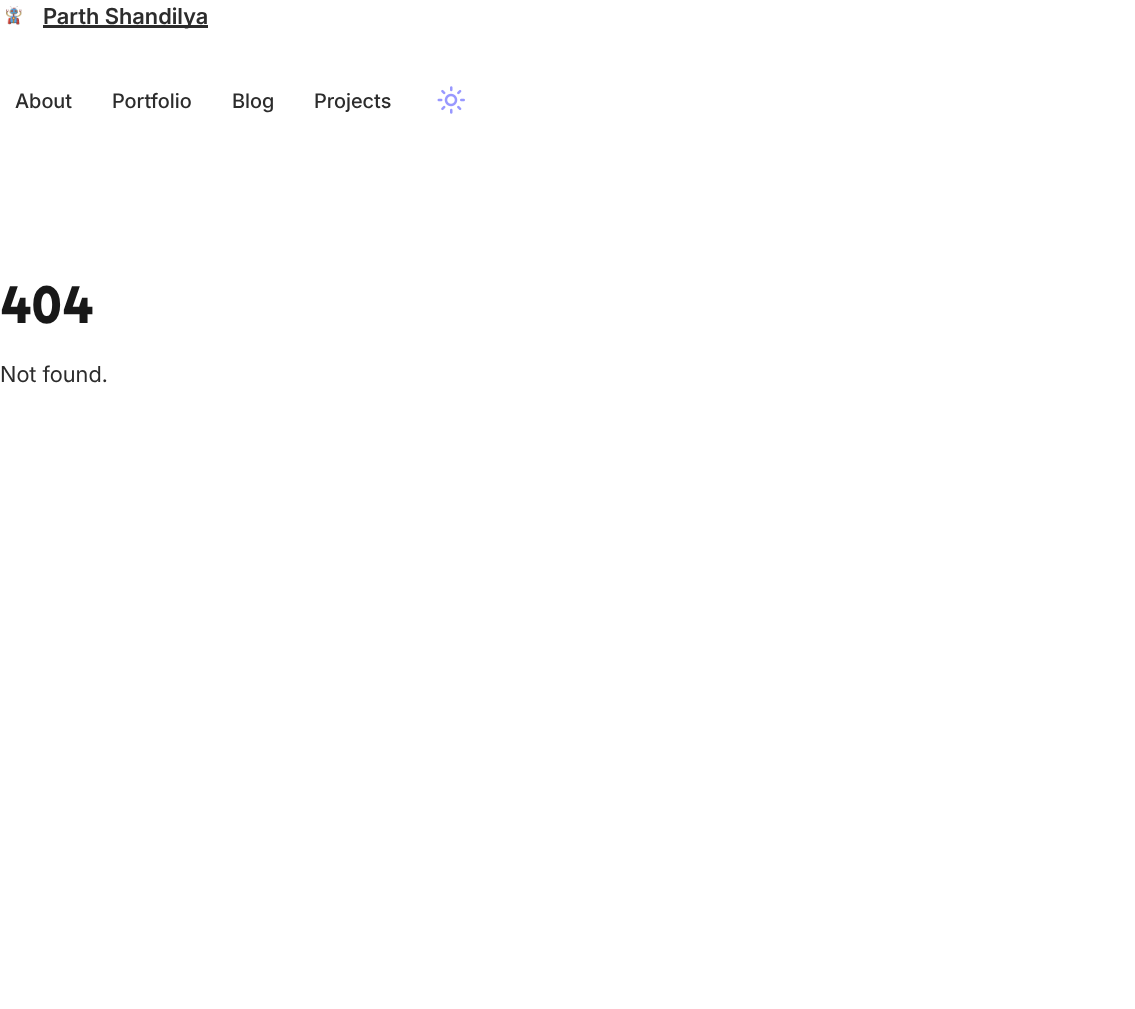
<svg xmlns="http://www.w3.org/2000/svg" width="1135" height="1009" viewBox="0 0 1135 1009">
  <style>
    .t1 { font: 600 22px Inter; fill: #2c2c2c; }
    .t2 { font: 500 20px Inter; fill: #2c2c2c; }
    .t3 { font: bold 54px Gabarito; fill: #181818; }
    .t4 { font: 22px Inter; fill: #2c2c2c; }
  </style>
  <rect width="100%" height="100%" fill="#fff"/>
  <image x="6" y="6" width="16" height="19" href="images/1.png"/>
  <rect x="43" y="25" width="165" height="3" fill="#2c2c2c"/>
  <text x="43" y="24" class="t1">Parth Shandilya</text>
  <text x="15" y="108" class="t2">About</text>
  <text x="112" y="108" class="t2">Portfolio</text>
  <text x="232" y="108" class="t2">Blog</text>
  <text x="314" y="108" class="t2">Projects</text>
  <image x="437" y="86" width="28" height="28" href="images/2.png"/>
  <text x="0" y="323" class="t3">404</text>
  <text x="0" y="382" class="t4">Not found.</text>
</svg>
